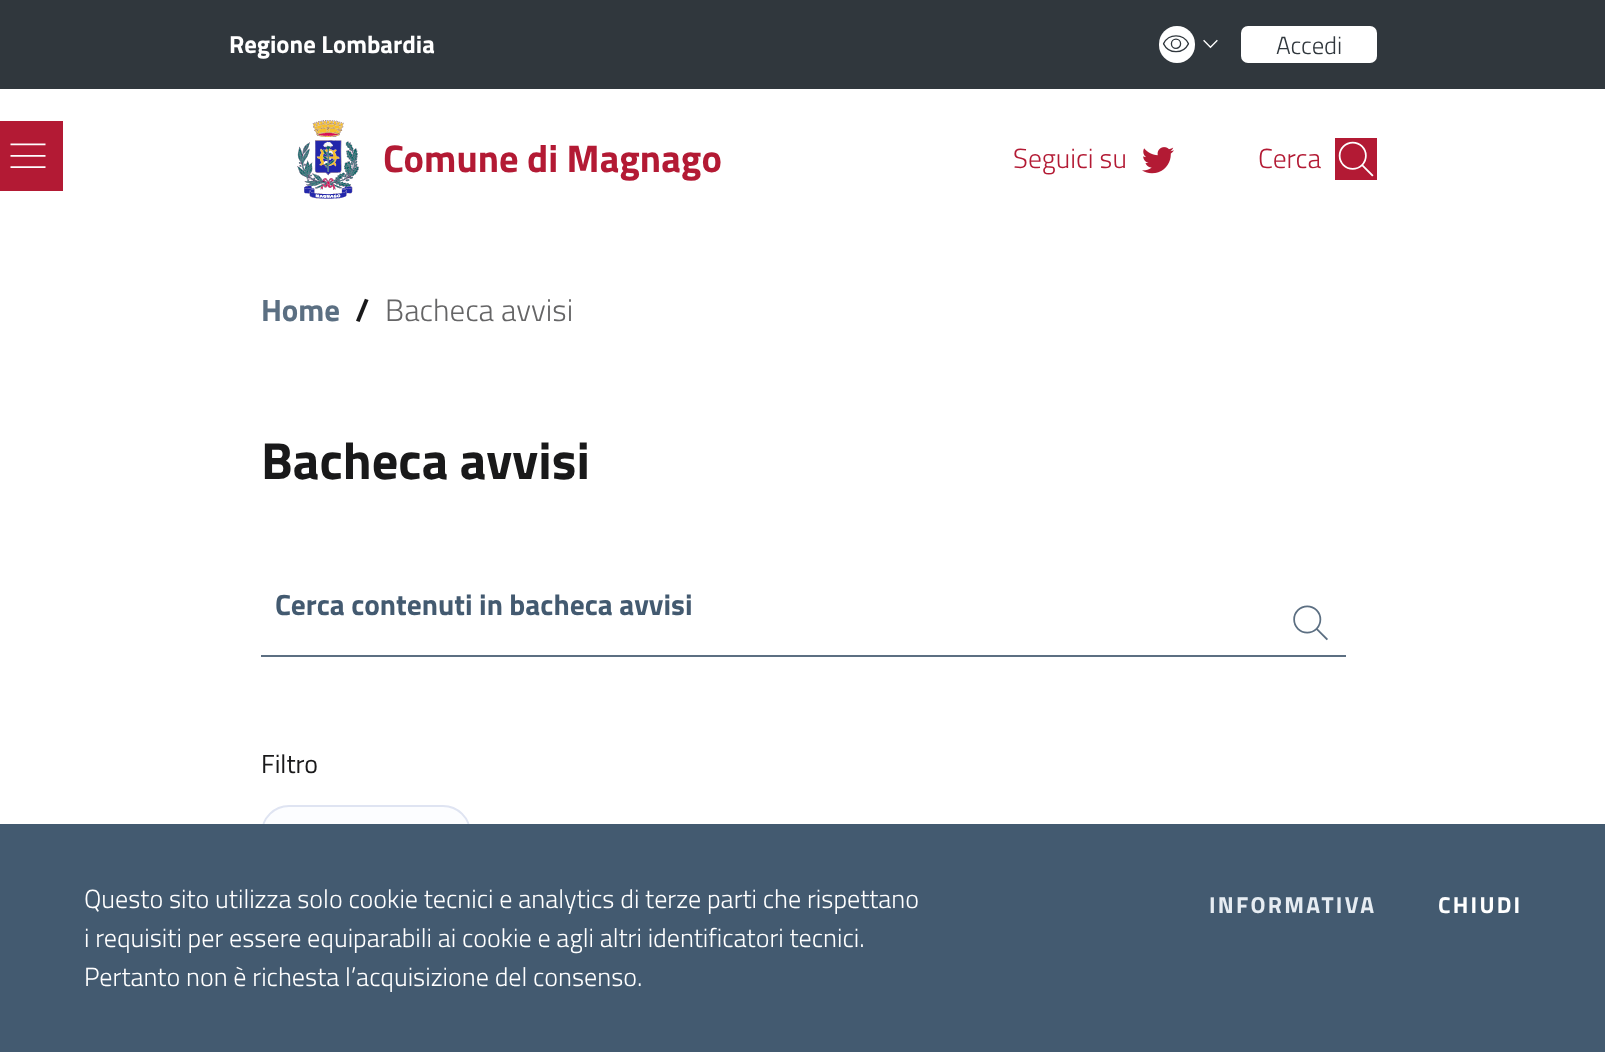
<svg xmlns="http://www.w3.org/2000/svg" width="1605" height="1052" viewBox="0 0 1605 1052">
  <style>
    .t1 { font: bold 24.75px Titillium Web; fill: #fff; }
    .t2 { font: 300 24.75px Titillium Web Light; fill: #30373d; }
    .t3 { font: bold 38.5px Titillium Web; fill: #b31a34; }
    .t4 { font: 300 27.5px Titillium Web Light; fill: #b31a34; }
    .t5 { font: bold 31px Titillium Web; fill: #5b6f82; }
    .t6 { font: bold 31px Titillium Web; fill: #19191a; }
    .t7 { font: 300 31px Titillium Web Light; fill: #656566; }
    .t8 { font: bold 52.25px Titillium Web; fill: #19191a; }
    .t9 { font: bold 29.4px Titillium Web; fill: #435a70; }
    .t10 { font: 26px Titillium Web; fill: #19191a; }
    .t11 { font: 300 26.15px Titillium Web Light; fill: #fff; }
    .t12 { font: bold 23px Titillium Web; letter-spacing: 2.25px; fill: #e6ecf2; }
    .t13 { font: bold 23px Titillium Web; letter-spacing: 2.25px; fill: #fff; }
  </style>
  <rect width="100%" height="100%" fill="#fff"/>
  <rect x="0" y="0" width="1605" height="89" fill="#30373d"/>
  <text x="229" y="53" class="t1">Regione Lombardia</text>
  <rect x="1159" y="26" width="36" height="37" rx="18" fill="#fff"/>
  <image x="1162" y="35" width="28" height="18" href="images/1.png"/>
  <image x="1203" y="39" width="15" height="10" href="images/2.png"/>
  <rect x="1241" y="26" width="136" height="37" rx="7" fill="#fff"/>
  <text x="1276" y="54" class="t2">Accedi</text>
  <rect x="0" y="121" width="63" height="70" fill="#b31a34"/>
  <image x="10" y="143" width="36" height="25" href="images/3.png"/>
  <image x="297" y="120" width="62" height="79" href="images/4.png"/>
  <text x="383" y="172" class="t3">Comune di Magnago</text>
  <text x="1013" y="168" class="t4">Seguici su</text>
  <image x="1142" y="147" width="32" height="27" href="images/5.png"/>
  <text x="1258" y="168" class="t4">Cerca</text>
  <rect x="1335" y="138" width="42" height="42" fill="#b31a34"/>
  <image x="1338" y="141" width="36" height="36" href="images/6.png"/>
  <text x="261" y="321" class="t5">Home</text>
  <text x="355" y="321" class="t6">/</text>
  <text x="385" y="321" class="t7">Bacheca avvisi</text>
  <text x="261" y="479" class="t8">Bacheca avvisi</text>
  <text x="275" y="615" class="t9">Cerca contenuti in bacheca avvisi</text>
  <image x="1293" y="605" width="35" height="36" href="images/7.png"/>
  <rect x="261" y="655" width="1085" height="2" fill="#5c6f82"/>
  <text x="261" y="773" class="t10">Filtro</text>
  <rect x="262" y="806" width="208" height="54" rx="27" fill="#fcfdff" stroke="#dfe4f2" stroke-width="2"/>
  <rect x="0" y="824" width="1605" height="228" fill="#435a70"/>
  <text x="84" y="908" class="t11">Questo sito utilizza solo cookie tecnici e analytics di terze parti che rispettano</text>
  <text x="84" y="947" class="t11">i requisiti per essere equiparabili ai cookie e agli altri identificatori tecnici.</text>
  <text x="84" y="986" class="t11">Pertanto non è richesta l’acquisizione del consenso.</text>
  <text x="1209" y="913" class="t12">INFORMATIVA</text>
  <text x="1438" y="913" class="t13">CHIUDI</text>
</svg>
